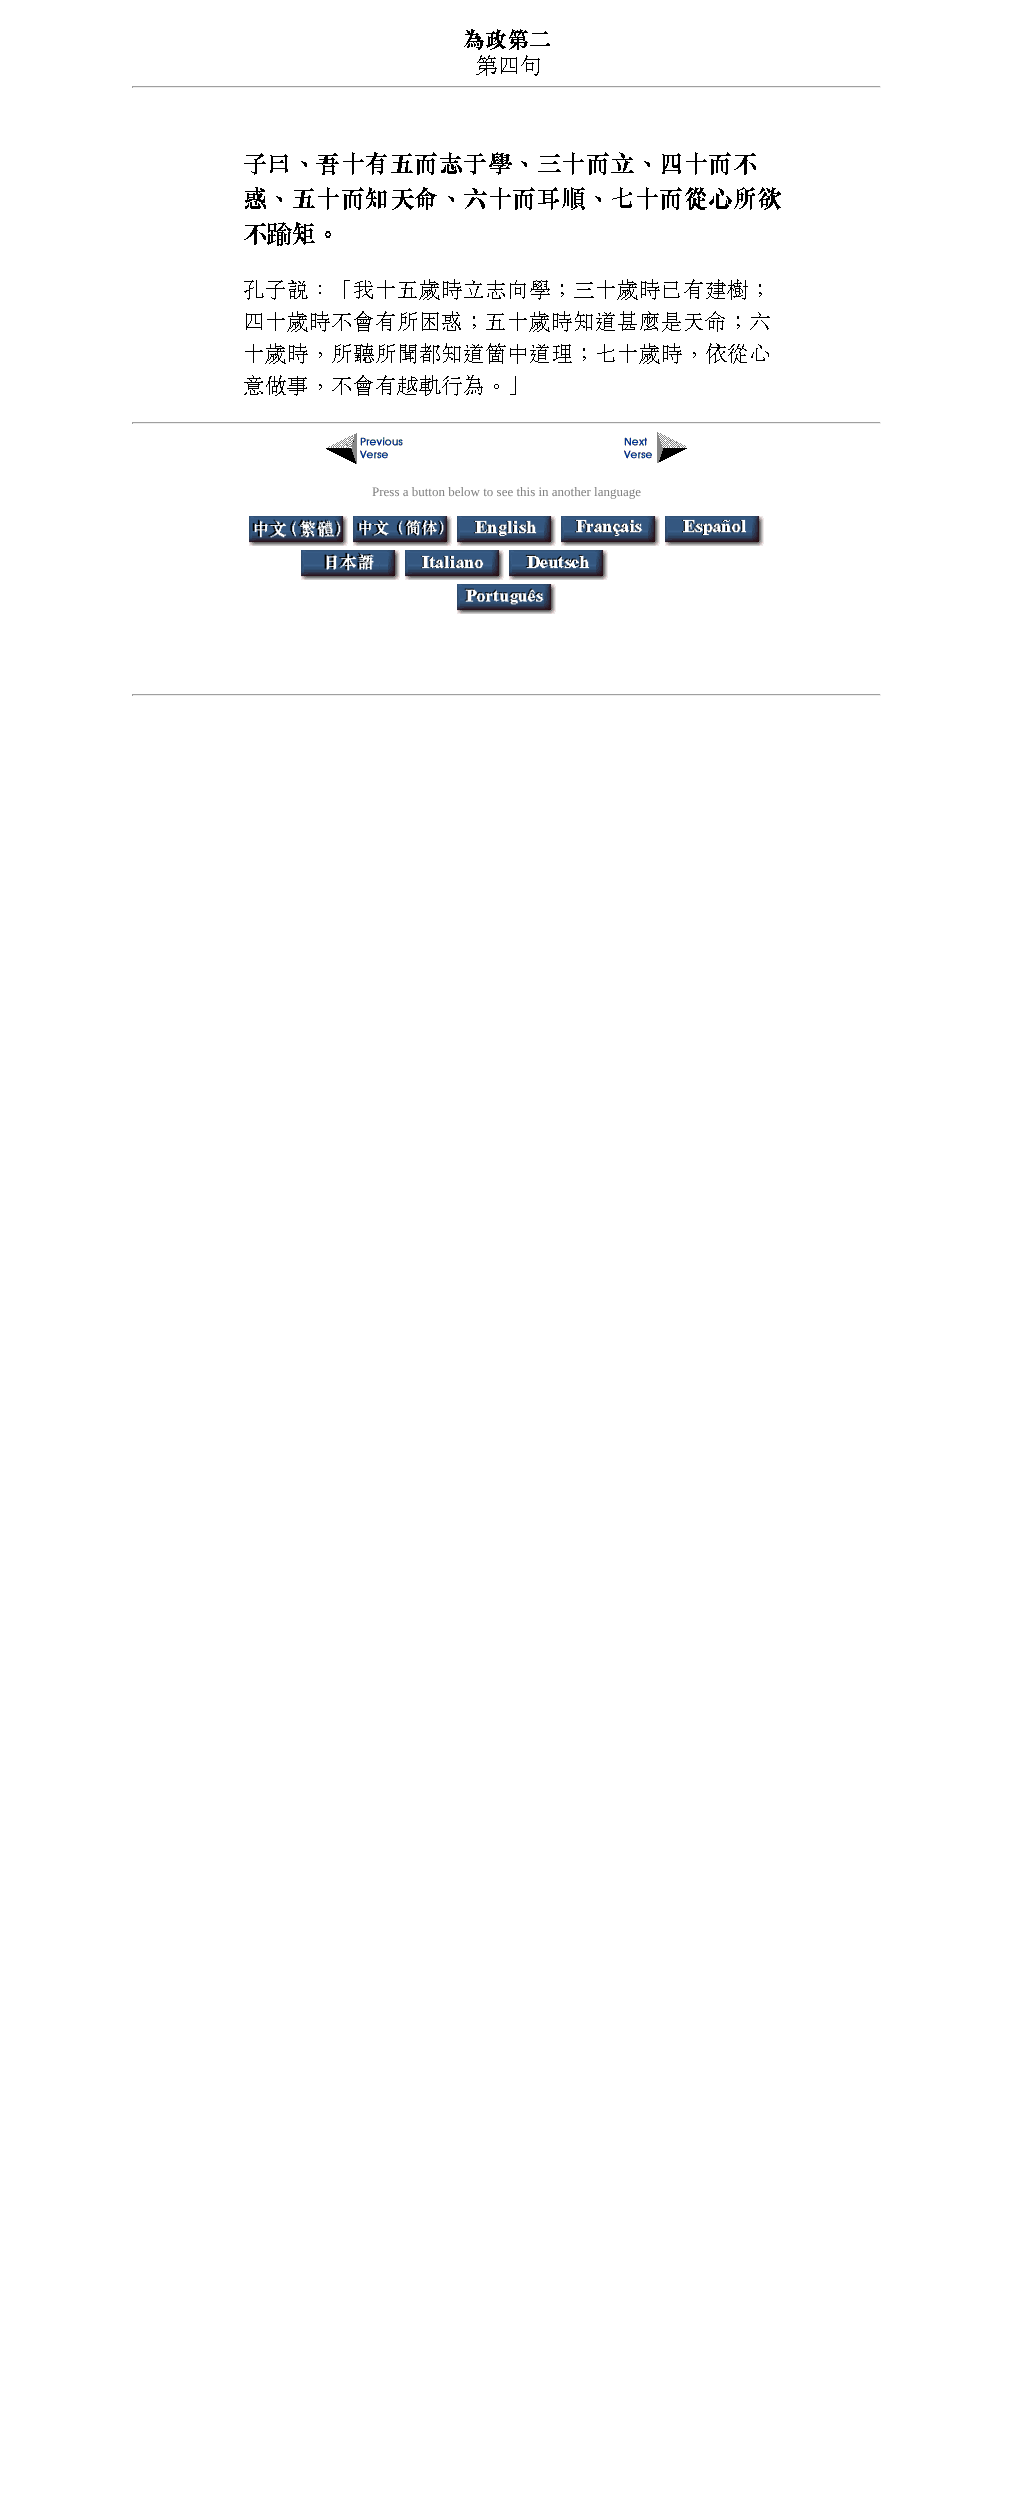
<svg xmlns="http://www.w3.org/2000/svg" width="1013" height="2514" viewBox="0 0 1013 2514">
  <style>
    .t1 { font: 13px Liberation Serif; fill: #808080; }
  </style>
  <rect width="100%" height="100%" fill="#fff"/>
  <image x="464" y="29" width="86" height="21" href="images/1.png"/>
  <image x="476" y="55" width="64" height="21" href="images/2.png"/>
  <rect x="132" y="86" width="749" height="1" fill="#9f9f9f"/>
  <rect x="880" y="86" width="1" height="2" fill="#eee"/>
  <rect x="132" y="87" width="749" height="1" fill="#eee"/>
  <rect x="132" y="86" width="1" height="2" fill="#9f9f9f"/>
  <image x="244" y="152" width="537" height="244" href="images/3.png"/>
  <rect x="132" y="422" width="749" height="1" fill="#9f9f9f"/>
  <rect x="880" y="422" width="1" height="2" fill="#eee"/>
  <rect x="132" y="423" width="749" height="1" fill="#eee"/>
  <rect x="132" y="422" width="1" height="2" fill="#9f9f9f"/>
  <image x="326" y="433" width="77" height="31" href="images/4.png"/>
  <image x="624" y="432" width="63" height="31" href="images/5.png"/>
  <text x="372" y="496" class="t1">Press a button below to see this in another language</text>
  <image x="249" y="516" width="99" height="30" href="images/6.png"/>
  <image x="353" y="516" width="99" height="30" href="images/7.png"/>
  <image x="457" y="516" width="99" height="30" href="images/8.png"/>
  <image x="561" y="516" width="99" height="30" href="images/9.png"/>
  <image x="665" y="516" width="99" height="30" href="images/10.png"/>
  <image x="301" y="550" width="99" height="30" href="images/11.png"/>
  <image x="405" y="550" width="99" height="30" href="images/12.png"/>
  <image x="509" y="550" width="99" height="30" href="images/13.png"/>
  <image x="457" y="584" width="99" height="30" href="images/14.png"/>
  <rect x="132" y="694" width="749" height="1" fill="#9f9f9f"/>
  <rect x="880" y="694" width="1" height="2" fill="#eee"/>
  <rect x="132" y="695" width="749" height="1" fill="#eee"/>
  <rect x="132" y="694" width="1" height="2" fill="#9f9f9f"/>
</svg>
